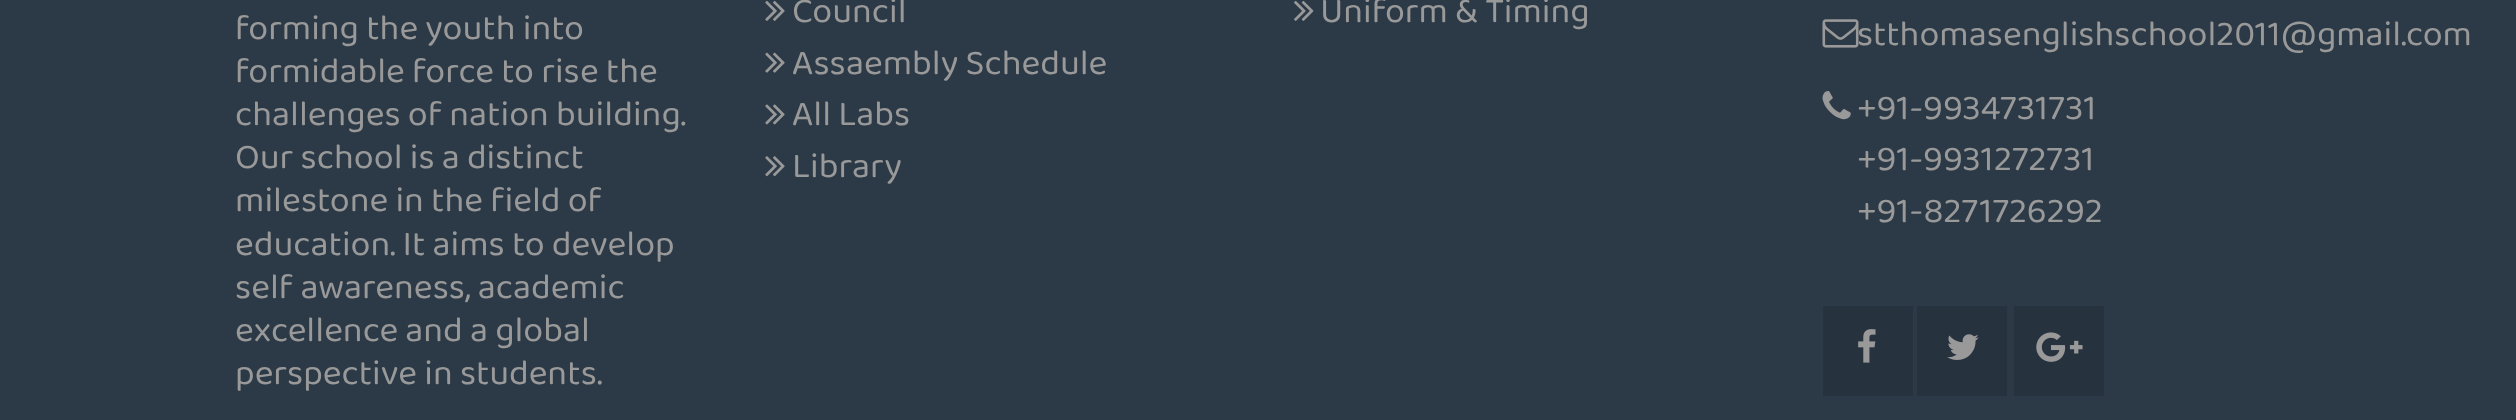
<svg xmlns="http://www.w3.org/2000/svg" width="2516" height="420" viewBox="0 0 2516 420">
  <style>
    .t1 { font: 36px 'Baloo Thambi 2'; fill: #999; }
  </style>
  <rect width="100%" height="100%" fill="#2c3a47"/>
  <text x="235" y="39" class="t1">forming the youth into</text>
  <text x="235" y="82" class="t1">formidable force to rise the</text>
  <text x="235" y="125" class="t1">challenges of nation building.</text>
  <text x="235" y="168" class="t1">Our school is a distinct</text>
  <text x="235" y="211" class="t1">milestone in the field of</text>
  <text x="235" y="255" class="t1">education. It aims to develop</text>
  <text x="235" y="298" class="t1">self awareness, academic</text>
  <text x="235" y="341" class="t1">excellence and a global</text>
  <text x="235" y="384" class="t1">perspective in students.</text>
  <image x="765" y="1" width="20" height="20" href="images/1.png"/>
  <text x="792" y="22" class="t1">Council</text>
  <image x="765" y="52" width="20" height="21" href="images/2.png"/>
  <text x="792" y="74" class="t1">Assaembly Schedule</text>
  <image x="765" y="104" width="20" height="21" href="images/3.png"/>
  <text x="792" y="125" class="t1">All Labs</text>
  <image x="765" y="156" width="20" height="21" href="images/4.png"/>
  <text x="792" y="177" class="t1">Library</text>
  <image x="1294" y="1" width="20" height="20" href="images/5.png"/>
  <text x="1320" y="22" class="t1">Uniform &amp; Timing</text>
  <image x="1822" y="19" width="37" height="29" href="images/6.png"/>
  <text x="1857" y="45" class="t1">stthomasenglishschool2011@gmail.com</text>
  <image x="1822" y="91" width="29" height="29" href="images/7.png"/>
  <text x="1857" y="119" class="t1">+91-9934731731</text>
  <text x="1857" y="170" class="t1">+91-9931272731</text>
  <text x="1857" y="222" class="t1">+91-8271726292</text>
  <rect x="1823" y="306" width="90" height="90" fill="#27323f"/>
  <image x="1858" y="329" width="18" height="34" href="images/8.png"/>
  <rect x="1917" y="306" width="90" height="90" fill="#27323f"/>
  <image x="1947" y="334" width="32" height="26" href="images/9.png"/>
  <rect x="2014" y="306" width="90" height="90" fill="#27323f"/>
  <image x="2036" y="332" width="47" height="30" href="images/10.png"/>
</svg>
